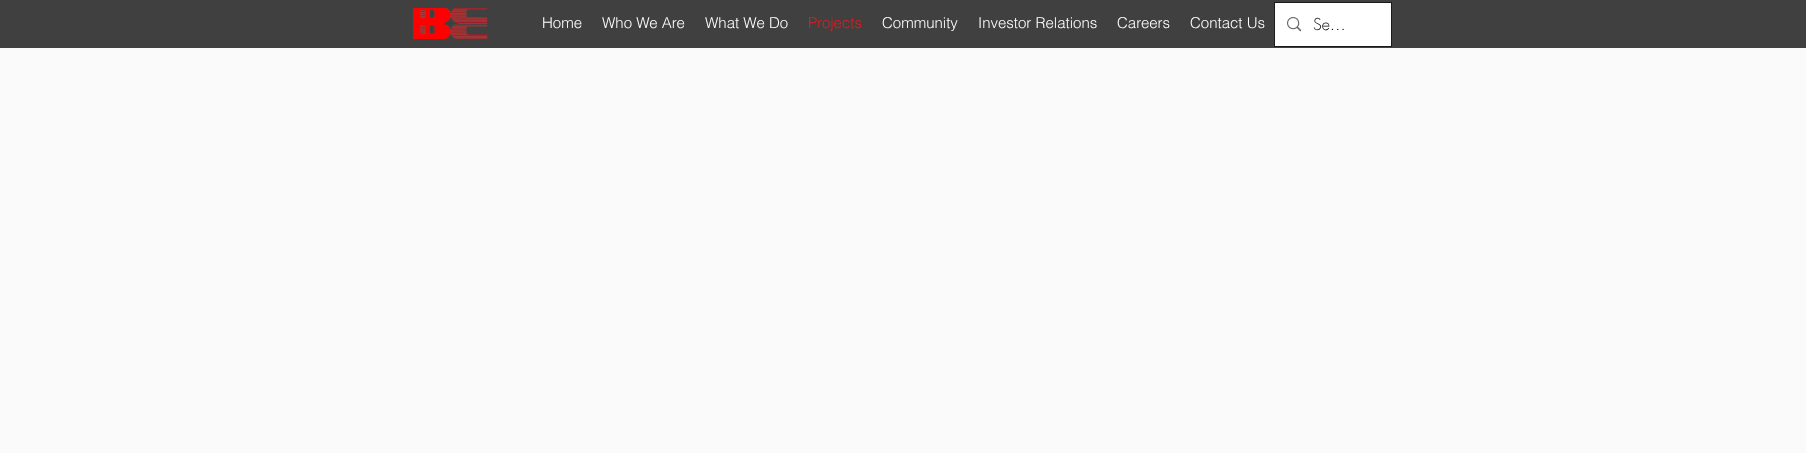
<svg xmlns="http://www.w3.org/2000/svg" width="1806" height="453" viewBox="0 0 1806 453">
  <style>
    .t1 { font: 300 15px helvetica; fill: #fff; }
    .t2 { font: 300 15px helvetica; fill: #e21c21; }
    .t3 { font: 300 16px futura; fill: #000; }
  </style>
  <rect width="100%" height="100%" fill="#fafafa"/>
  <rect x="0" y="0" width="1806" height="48" fill="#404040"/>
  <image x="413" y="8" width="75" height="31" href="images/1.png"/>
  <text x="542" y="28" class="t1">Home</text>
  <text x="602" y="28" class="t1">Who We Are</text>
  <text x="705" y="28" class="t1">What We Do</text>
  <text x="808" y="28" class="t2">Projects</text>
  <text x="882" y="28" class="t1">Community</text>
  <text x="978" y="28" class="t1">Investor Relations</text>
  <text x="1117" y="28" class="t1">Careers</text>
  <text x="1190" y="28" class="t1">Contact Us</text>
  <rect x="1274.5" y="2.5" width="117" height="44" fill="none" stroke="#1a1a1a"/>
  <rect x="1275" y="3" width="116" height="43" fill="#fff"/>
  <image x="1287" y="17" width="14" height="15" href="images/2.png"/>
  <text x="1313" y="30" class="t3">Se…</text>
</svg>
